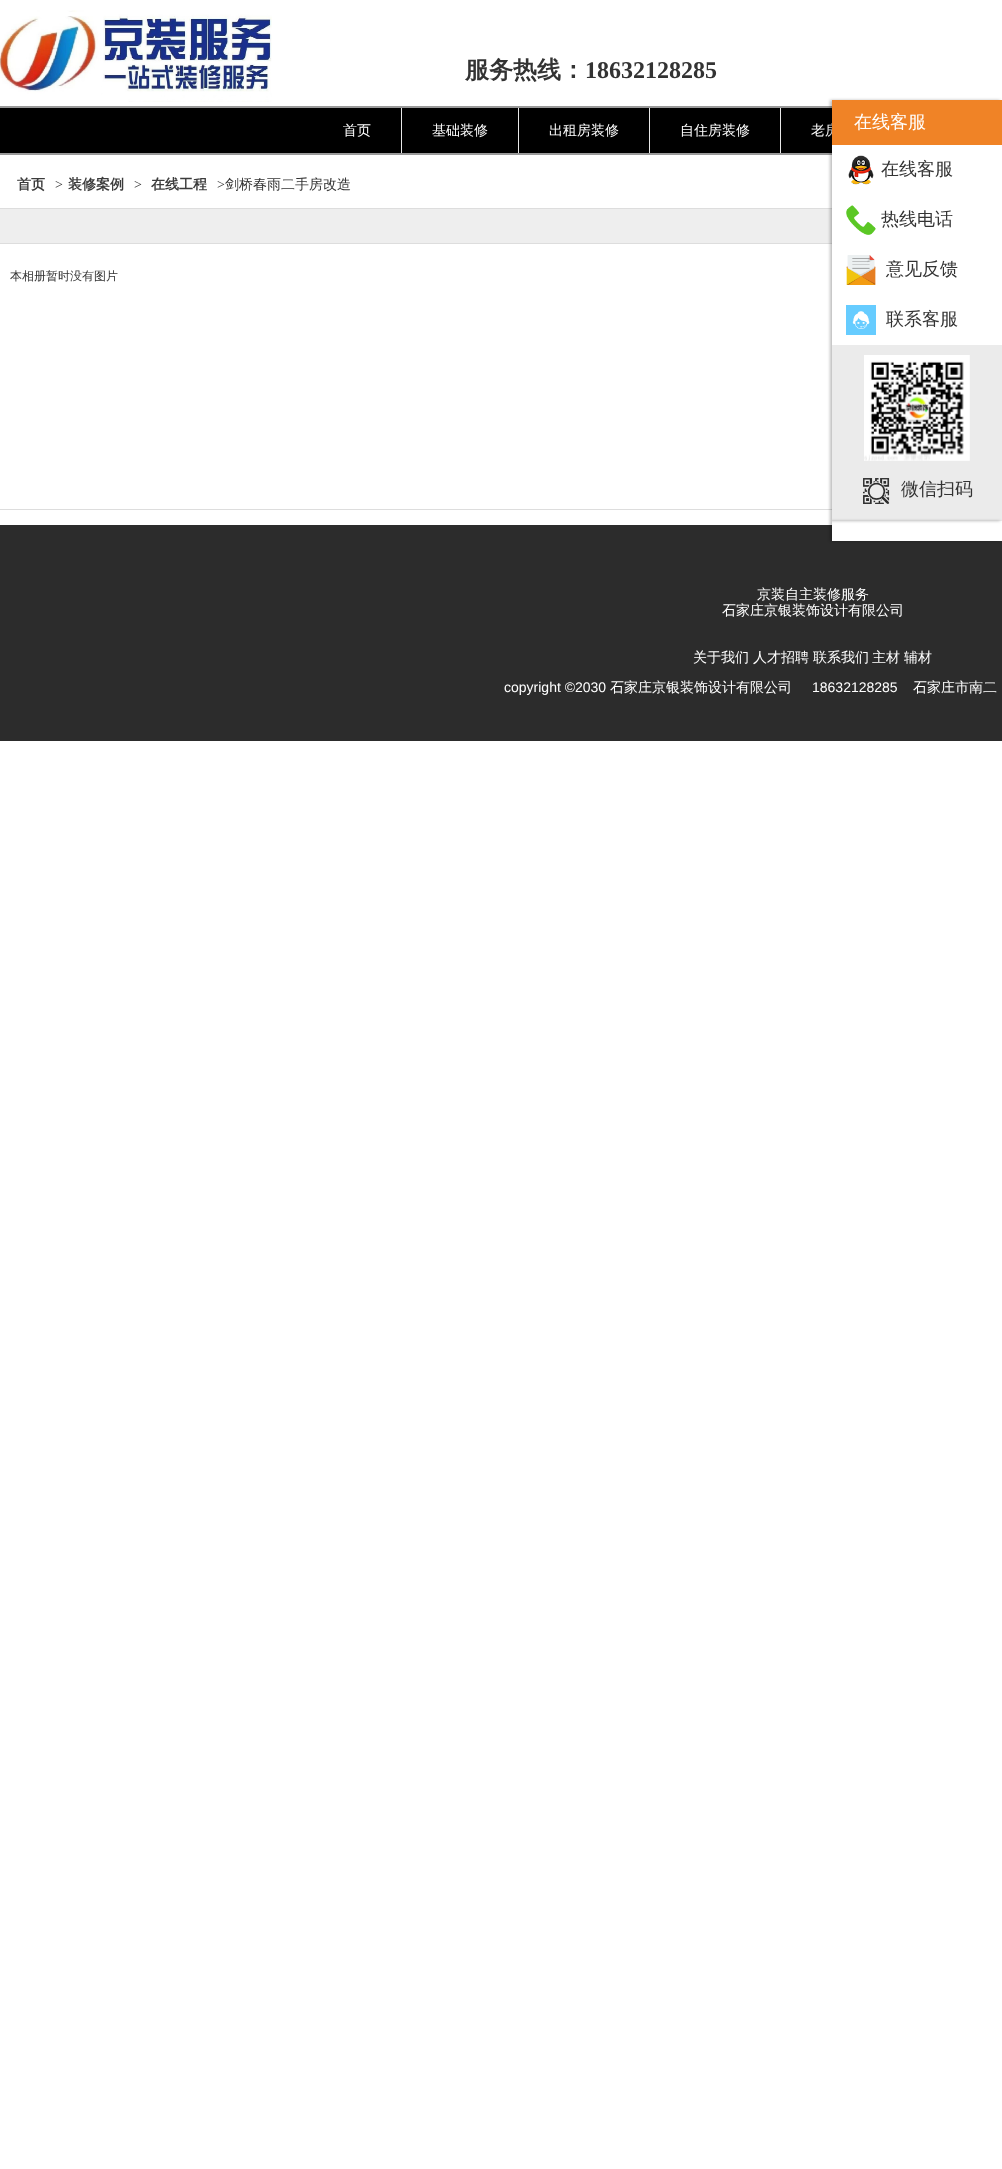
<svg xmlns="http://www.w3.org/2000/svg" width="1002" height="2169" viewBox="0 0 1002 2169">
  <style>
    .t1 { font: bold 24px WenQuanYi Zen Hei; fill: #333; }
    .t2 { font: bold 24px Liberation Serif; fill: #333; }
    .t3 { font: 500 14px WenQuanYi Zen Hei; fill: #fff; }
    .t4 { font: bold 14px WenQuanYi Zen Hei; fill: #3c3c3c; }
    .t5 { font: 14px Liberation Serif; fill: #333; }
    .t6 { font: 500 14px WenQuanYi Zen Hei; fill: #333; }
    .t7 { font: 500 12px WenQuanYi Zen Hei; fill: #333; }
    .t8 { font: 14px Liberation Sans; fill: #fff; }
    .t9 { font: 500 18px WenQuanYi Zen Hei; fill: #fff; }
    .t10 { font: 500 18px WenQuanYi Zen Hei; fill: #333; }
  </style>
  <defs>
    <clipPath id="clip1"><path d="M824 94H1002V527H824ZM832 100H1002V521H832Z" clip-rule="evenodd"/></clipPath>
    <clipPath id="clip2"><path d="M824 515H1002V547H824ZM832 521H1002V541H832Z" clip-rule="evenodd"/></clipPath>
  </defs>
  <rect width="100%" height="100%" fill="#fff"/>
  <image x="0" y="10" width="272" height="92" href="images/1.png"/>
  <text x="465" y="78" class="t1">服务热线：</text>
  <text x="585" y="78" class="t2">18632128285</text>
  <rect x="0" y="108" width="832" height="45" fill="#000"/>
  <rect x="0" y="106" width="832" height="2" fill="#999"/>
  <rect x="0" y="153" width="832" height="2" fill="#999"/>
  <rect x="401" y="108" width="1" height="45" fill="#e8e8e8"/>
  <text x="343" y="135" class="t3">首页</text>
  <rect x="518" y="108" width="1" height="45" fill="#e8e8e8"/>
  <text x="432" y="135" class="t3">基础装修</text>
  <rect x="649" y="108" width="1" height="45" fill="#e8e8e8"/>
  <text x="549" y="135" class="t3">出租房装修</text>
  <rect x="780" y="108" width="1" height="45" fill="#e8e8e8"/>
  <text x="680" y="135" class="t3">自住房装修</text>
  <text x="811" y="135" class="t3">老房</text>
  <text x="17" y="189" class="t4">首页</text>
  <text x="55" y="189" class="t5">&gt;</text>
  <text x="68" y="189" class="t4">装修案例</text>
  <text x="134" y="189" class="t5">&gt;</text>
  <text x="151" y="189" class="t4">在线工程</text>
  <text x="217" y="189" class="t5">&gt;</text>
  <text x="225" y="189" class="t6">剑桥春雨二手房改造</text>
  <rect x="-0.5" y="208.5" width="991" height="301" fill="none" stroke="#ddd"/>
  <rect x="0" y="209" width="832" height="34" fill="#eee"/>
  <rect x="0" y="243" width="832" height="1" fill="#ddd"/>
  <text x="10" y="280" class="t7">本相册暂时没有图片</text>
  <rect x="0" y="525" width="1002" height="216" fill="#2c2c2c"/>
  <text x="757" y="599" class="t3">京装自主装修服务</text>
  <text x="722" y="615" class="t3">石家庄京银装饰设计有限公司</text>
  <text x="693" y="662" class="t3">关于我们</text>
  <text x="753" y="662" class="t3">人才招聘</text>
  <text x="813" y="662" class="t3">联系我们</text>
  <text x="872" y="662" class="t3">主材</text>
  <text x="904" y="662" class="t3">辅材</text>
  <text x="504" y="692" class="t8">copyright ©2030</text>
  <text x="610" y="692" class="t3">石家庄京银装饰设计有限公司</text>
  <text x="812" y="692" class="t8">18632128285</text>
  <text x="913" y="692" class="t3">石家庄市南二</text>
  <rect x="832" y="208" width="170" height="333" fill="#fff"/>
  <g clip-path="url(#clip1)">
    <rect x="830" y="100" width="170" height="421" fill="#00000040" filter="blur(1.5px)"/>
  </g>
  <rect x="832" y="100" width="170" height="45" fill="#f08326"/>
  <text x="854" y="128" class="t9">在线客服</text>
  <image x="848" y="155" width="26" height="30" href="images/2.png"/>
  <text x="881" y="175" class="t10">在线客服</text>
  <image x="846" y="205" width="30" height="30" href="images/3.png"/>
  <text x="881" y="225" class="t10">热线电话</text>
  <image x="846" y="255" width="30" height="30" href="images/4.png"/>
  <text x="886" y="275" class="t10">意见反馈</text>
  <image x="846" y="305" width="30" height="30" href="images/5.png"/>
  <text x="886" y="325" class="t10">联系客服</text>
  <rect x="832" y="345" width="170" height="176" fill="#ebebeb"/>
  <image x="864" y="355" width="106" height="106" href="images/6.png"/>
  <image x="863" y="478" width="27" height="26" href="images/7.png"/>
  <text x="901" y="495" class="t10">微信扫码</text>
  <g clip-path="url(#clip2)">
    <rect x="830" y="521" width="170" height="20" fill="#00000040" filter="blur(1.5px)"/>
  </g>
</svg>
